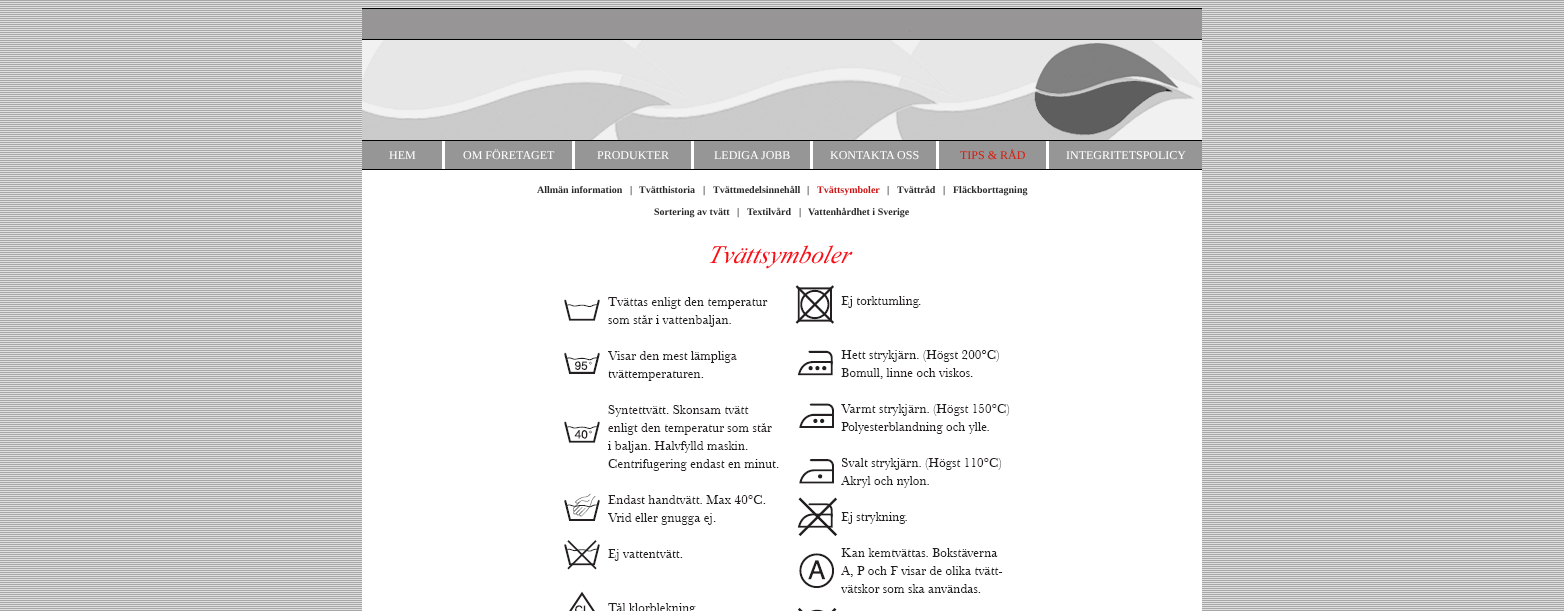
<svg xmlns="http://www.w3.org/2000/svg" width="1564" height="611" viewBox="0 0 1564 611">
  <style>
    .t1 { font: 12px Liberation Serif; fill: #fff; }
    .t2 { font: 12px Liberation Serif; fill: #d61b0d; }
    .t3 { font: bold 10px Liberation Serif; fill: #2a2a2a; }
    .t4 { font: bold 10px Liberation Serif; fill: #ca1414; }
  </style>
  <rect width="100%" height="100%" fill="#fff"/>
  <image x="0" y="0" width="1564" height="611" href="images/1.png"/>
  <image x="362" y="8" width="840" height="133" href="images/2.png"/>
  <rect x="442" y="141" width="607" height="28" fill="#fff"/>
  <rect x="362" y="141" width="80" height="28" fill="#979696"/>
  <text x="389" y="159" class="t1">HEM</text>
  <rect x="445" y="141" width="127" height="28" fill="#979696"/>
  <text x="463" y="159" class="t1">OM FÖRETAGET</text>
  <rect x="575" y="141" width="116" height="28" fill="#979696"/>
  <text x="597" y="159" class="t1">PRODUKTER</text>
  <rect x="694" y="141" width="116" height="28" fill="#979696"/>
  <text x="714" y="159" class="t1">LEDIGA JOBB</text>
  <rect x="813" y="141" width="123" height="28" fill="#979696"/>
  <text x="830" y="159" class="t1">KONTAKTA OSS</text>
  <rect x="939" y="141" width="107" height="28" fill="#979696"/>
  <text x="960" y="159" class="t2">TIPS &amp; RÅD</text>
  <rect x="1049" y="141" width="153" height="28" fill="#979696"/>
  <text x="1066" y="159" class="t1">INTEGRITETSPOLICY</text>
  <rect x="362" y="169" width="840" height="1" fill="#000"/>
  <rect x="362" y="170" width="840" height="441" fill="#fff"/>
  <text x="537" y="193" class="t3">Allmän information</text>
  <text x="630" y="193" class="t3">|</text>
  <text x="639" y="193" class="t3">Tvätthistoria</text>
  <text x="703" y="193" class="t3">|</text>
  <text x="713" y="193" class="t3">Tvättmedelsinnehåll</text>
  <text x="807" y="193" class="t3">|</text>
  <text x="817" y="193" class="t4">Tvättsymboler</text>
  <text x="887" y="193" class="t3">|</text>
  <text x="897" y="193" class="t3">Tvättråd</text>
  <text x="943" y="193" class="t3">|</text>
  <text x="953" y="193" class="t3">Fläckborttagning</text>
  <text x="654" y="215" class="t3">Sortering av tvätt</text>
  <text x="737" y="215" class="t3">|</text>
  <text x="747" y="215" class="t3">Textilvård</text>
  <text x="799" y="215" class="t3">|</text>
  <text x="808" y="215" class="t3">Vattenhårdhet i Sverige</text>
  <image x="709" y="245" width="144" height="24" href="images/3.png"/>
  <image x="564" y="285" width="446" height="326" href="images/4.png"/>
</svg>
